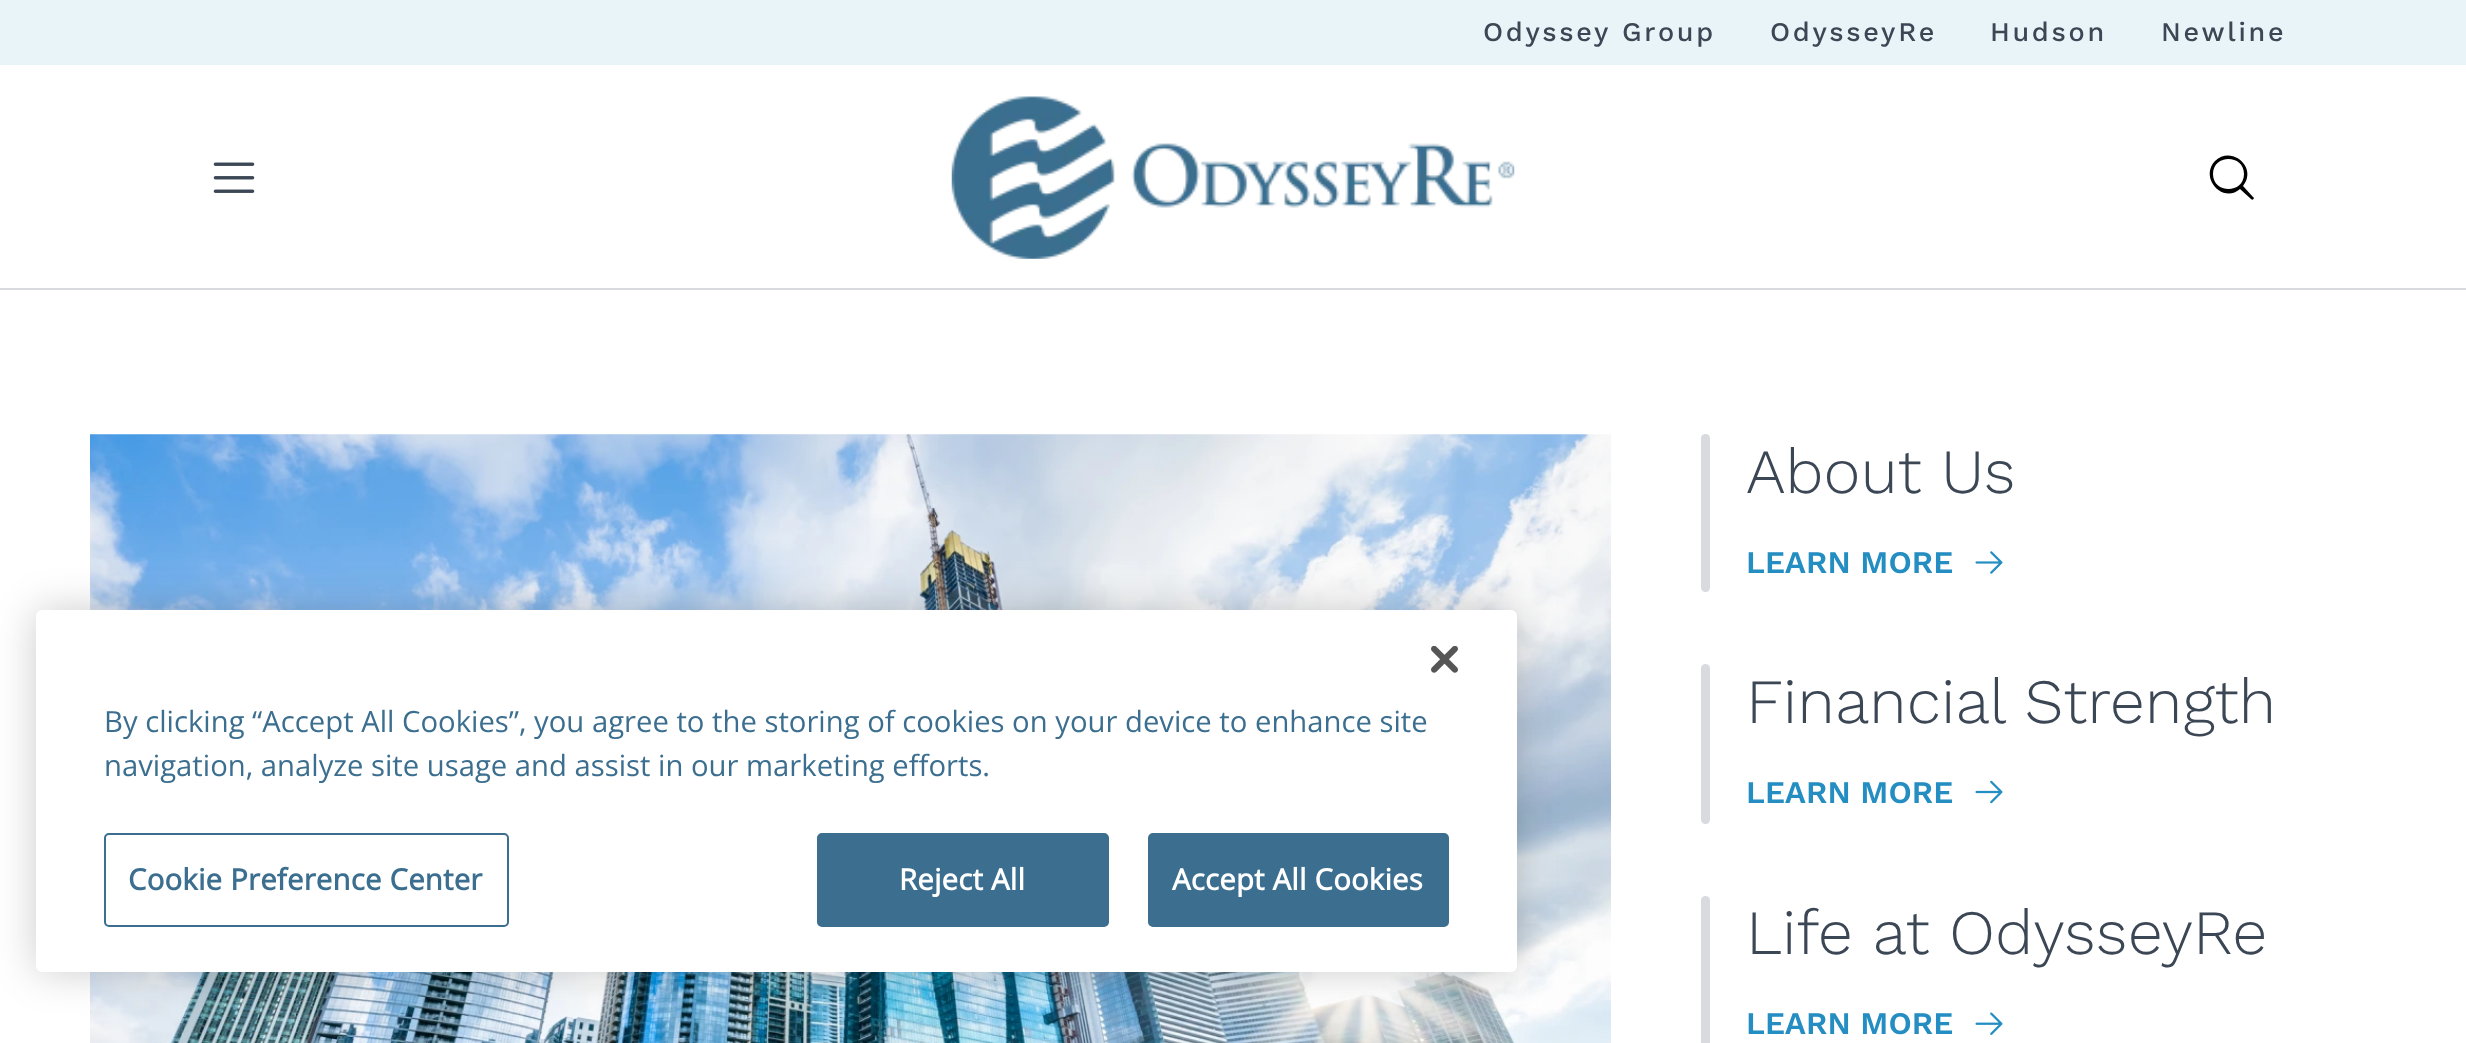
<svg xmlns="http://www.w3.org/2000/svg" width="2466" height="1043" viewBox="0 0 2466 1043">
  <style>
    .t1 { font: 500 27px Work Sans; letter-spacing: 2.75px; fill: #3c4755; }
    .t2 { font: 29.25px Open Sans; fill: #3b6e8f; }
    .t3 { font: bold 29.25px Open Sans; letter-spacing: 0.25px; fill: #3b6e8f; }
    .t4 { font: bold 29.25px Open Sans; letter-spacing: 0.25px; fill: #fff; }
    .t5 { font: 300 63px Work Sans; fill: #3c4755; }
    .t6 { font: 600 31.5px Work Sans; fill: #248dc1; }
  </style>
  <rect width="100%" height="100%" fill="#fff"/>
  <rect x="0" y="0" width="2466" height="65" fill="#e9f4f9"/>
  <text x="1483" y="41" class="t1">Odyssey Group</text>
  <text x="1770" y="41" class="t1">OdysseyRe</text>
  <text x="1990" y="41" class="t1">Hudson</text>
  <text x="2161" y="41" class="t1">Newline</text>
  <rect x="0" y="288" width="2466" height="2" fill="#d8dadd"/>
  <image x="213" y="162" width="42" height="31" href="images/1.png"/>
  <image x="951" y="96" width="564" height="163" href="images/2.png"/>
  <path d="M2253 197L2243 186C2258 168 2232 145 2215 161C2199 178 2223 204 2240 189L2251 199C2253 201 2255 198 2253 197ZM2213 174C2213 154 2244 154 2244 174C2244 194 2213 194 2213 174Z" fill="#000"/>
  <image x="90" y="434" width="1521" height="609" href="images/4.png"/>
  <rect x="36" y="610" width="1481" height="362" rx="6" fill="#00000033" filter="blur(20px)"/>
  <rect x="36" y="610" width="1481" height="362" rx="6" fill="#fff"/>
  <image x="1431" y="646" width="27" height="27" href="images/3.png"/>
  <text x="104" y="732" class="t2">By clicking “Accept All Cookies”, you agree to the storing of cookies on your device to enhance site</text>
  <text x="104" y="776" class="t2">navigation, analyze site usage and assist in our marketing efforts.</text>
  <rect x="105" y="834" width="403" height="92" rx="4" fill="none" stroke="#3b6e8f" stroke-width="2"/>
  <text x="128" y="890" class="t3">Cookie Preference Center</text>
  <rect x="818" y="834" width="290" height="92" rx="4" fill="#3b6e8f" stroke="#3b6e8f" stroke-width="2"/>
  <text x="899" y="890" class="t4">Reject All</text>
  <rect x="1149" y="834" width="299" height="92" rx="4" fill="#3b6e8f" stroke="#3b6e8f" stroke-width="2"/>
  <text x="1172" y="890" class="t4">Accept All Cookies</text>
  <rect x="1701" y="434" width="9" height="158" rx="4.5" fill="#d8dadd"/>
  <text x="1746" y="493" class="t5">About Us</text>
  <text x="1746" y="573" class="t6">LEARN MORE</text>
  <image x="1975" y="551" width="28" height="23" href="images/5.png"/>
  <rect x="1701" y="664" width="9" height="160" rx="4.5" fill="#d8dadd"/>
  <text x="1746" y="723" class="t5">Financial Strength</text>
  <text x="1746" y="803" class="t6">LEARN MORE</text>
  <image x="1975" y="780" width="28" height="24" href="images/6.png"/>
  <rect x="1701" y="896" width="9" height="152" rx="4.5" fill="#d8dadd"/>
  <text x="1746" y="954" class="t5">Life at OdysseyRe</text>
  <text x="1746" y="1034" class="t6">LEARN MORE</text>
  <image x="1975" y="1012" width="28" height="23" href="images/7.png"/>
</svg>
